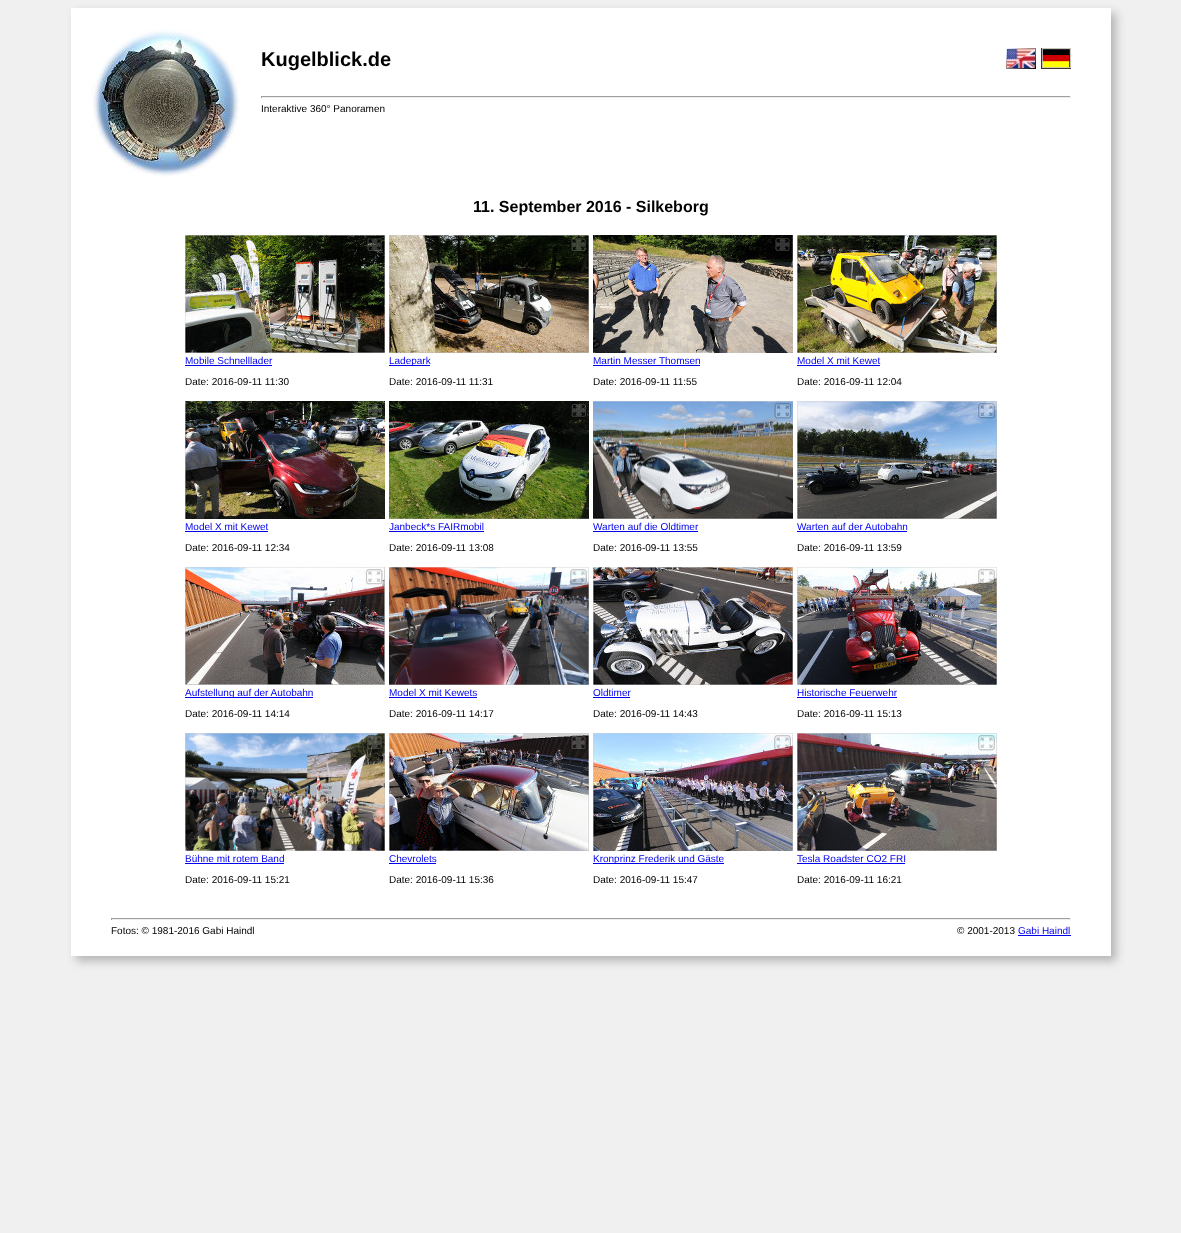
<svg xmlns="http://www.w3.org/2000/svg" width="1181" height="1233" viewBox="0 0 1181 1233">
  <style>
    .t1 { font: bold 20px Liberation Sans; fill: #000; }
    .t2 { font: 10px Liberation Sans; fill: #000; }
    .t3 { font: bold 16px Liberation Sans; fill: #000; }
    .t4 { font: 10px Liberation Sans; fill: #00e; }
  </style>
  <rect width="100%" height="100%" fill="#f0f0f0"/>
  <rect x="76" y="13" width="1040" height="948" fill="#b4b4b4" filter="blur(5px)"/>
  <rect x="71" y="8" width="1040" height="948" fill="#fff"/>
  <image x="91" y="28" width="148" height="149" href="images/1.png"/>
  <text x="261" y="66" class="t1">Kugelblick.de</text>
  <image x="1006" y="48" width="30" height="21" href="images/2.png"/>
  <image x="1041" y="48" width="30" height="21" href="images/3.png"/>
  <rect x="261" y="96" width="810" height="1" fill="#9f9f9f"/>
  <rect x="1070" y="96" width="1" height="2" fill="#eee"/>
  <rect x="261" y="97" width="810" height="1" fill="#eee"/>
  <rect x="261" y="96" width="1" height="2" fill="#9f9f9f"/>
  <text x="261" y="112" class="t2">Interaktive 360° Panoramen</text>
  <text x="473" y="212" class="t3">11. September 2016 - Silkeborg</text>
  <image x="185" y="235" width="200" height="118" href="images/4.png"/>
  <text x="185" y="364" class="t4">Mobile Schnelllader</text>
  <rect x="185" y="365" width="87" height="1" fill="#00e"/>
  <text x="185" y="385" class="t2">Date: 2016-09-11 11:30</text>
  <image x="389" y="235" width="200" height="118" href="images/5.png"/>
  <rect x="389" y="365" width="41" height="1" fill="#00e"/>
  <text x="389" y="364" class="t4">Ladepark</text>
  <text x="389" y="385" class="t2">Date: 2016-09-11 11:31</text>
  <image x="593" y="235" width="200" height="118" href="images/6.png"/>
  <text x="593" y="364" class="t4">Martin Messer Thomsen</text>
  <rect x="593" y="365" width="107" height="1" fill="#00e"/>
  <text x="593" y="385" class="t2">Date: 2016-09-11 11:55</text>
  <image x="797" y="235" width="200" height="118" href="images/7.png"/>
  <text x="797" y="364" class="t4">Model X mit Kewet</text>
  <rect x="797" y="365" width="83" height="1" fill="#00e"/>
  <text x="797" y="385" class="t2">Date: 2016-09-11 12:04</text>
  <image x="185" y="401" width="200" height="118" href="images/8.png"/>
  <text x="185" y="530" class="t4">Model X mit Kewet</text>
  <rect x="185" y="531" width="83" height="1" fill="#00e"/>
  <text x="185" y="551" class="t2">Date: 2016-09-11 12:34</text>
  <image x="389" y="401" width="200" height="118" href="images/9.png"/>
  <text x="389" y="530" class="t4">Janbeck*s FAIRmobil</text>
  <rect x="389" y="531" width="95" height="1" fill="#00e"/>
  <text x="389" y="551" class="t2">Date: 2016-09-11 13:08</text>
  <image x="593" y="401" width="200" height="118" href="images/10.png"/>
  <text x="593" y="530" class="t4">Warten auf die Oldtimer</text>
  <rect x="593" y="531" width="105" height="1" fill="#00e"/>
  <text x="593" y="551" class="t2">Date: 2016-09-11 13:55</text>
  <image x="797" y="401" width="200" height="118" href="images/11.png"/>
  <text x="797" y="530" class="t4">Warten auf der Autobahn</text>
  <rect x="797" y="531" width="110" height="1" fill="#00e"/>
  <text x="797" y="551" class="t2">Date: 2016-09-11 13:59</text>
  <image x="185" y="567" width="200" height="118" href="images/12.png"/>
  <rect x="185" y="697" width="128" height="1" fill="#00e"/>
  <text x="185" y="696" class="t4">Aufstellung auf der Autobahn</text>
  <text x="185" y="717" class="t2">Date: 2016-09-11 14:14</text>
  <image x="389" y="567" width="200" height="118" href="images/13.png"/>
  <text x="389" y="696" class="t4">Model X mit Kewets</text>
  <rect x="389" y="697" width="88" height="1" fill="#00e"/>
  <text x="389" y="717" class="t2">Date: 2016-09-11 14:17</text>
  <image x="593" y="567" width="200" height="118" href="images/14.png"/>
  <text x="593" y="696" class="t4">Oldtimer</text>
  <rect x="593" y="697" width="37" height="1" fill="#00e"/>
  <text x="593" y="717" class="t2">Date: 2016-09-11 14:43</text>
  <image x="797" y="567" width="200" height="118" href="images/15.png"/>
  <text x="797" y="696" class="t4">Historische Feuerwehr</text>
  <rect x="797" y="697" width="100" height="1" fill="#00e"/>
  <text x="797" y="717" class="t2">Date: 2016-09-11 15:13</text>
  <image x="185" y="733" width="200" height="118" href="images/16.png"/>
  <text x="185" y="862" class="t4">Bühne mit rotem Band</text>
  <rect x="185" y="863" width="99" height="1" fill="#00e"/>
  <text x="185" y="883" class="t2">Date: 2016-09-11 15:21</text>
  <image x="389" y="733" width="200" height="118" href="images/17.png"/>
  <text x="389" y="862" class="t4">Chevrolets</text>
  <rect x="389" y="863" width="47" height="1" fill="#00e"/>
  <text x="389" y="883" class="t2">Date: 2016-09-11 15:36</text>
  <image x="593" y="733" width="200" height="118" href="images/18.png"/>
  <rect x="593" y="863" width="131" height="1" fill="#00e"/>
  <text x="593" y="862" class="t4">Kronprinz Frederik und Gäste</text>
  <text x="593" y="883" class="t2">Date: 2016-09-11 15:47</text>
  <image x="797" y="733" width="200" height="118" href="images/19.png"/>
  <text x="797" y="862" class="t4">Tesla Roadster CO2 FRI</text>
  <rect x="797" y="863" width="108" height="1" fill="#00e"/>
  <text x="797" y="883" class="t2">Date: 2016-09-11 16:21</text>
  <rect x="111" y="918" width="960" height="1" fill="#9f9f9f"/>
  <rect x="1070" y="918" width="1" height="2" fill="#eee"/>
  <rect x="111" y="919" width="960" height="1" fill="#eee"/>
  <rect x="111" y="918" width="1" height="2" fill="#9f9f9f"/>
  <text x="111" y="934" class="t2">Fotos: © 1981-2016 Gabi Haindl</text>
  <text x="957" y="934" class="t2">© 2001-2013</text>
  <text x="1018" y="934" class="t4">Gabi Haindl</text>
  <rect x="1018" y="935" width="53" height="1" fill="#00e"/>
</svg>
